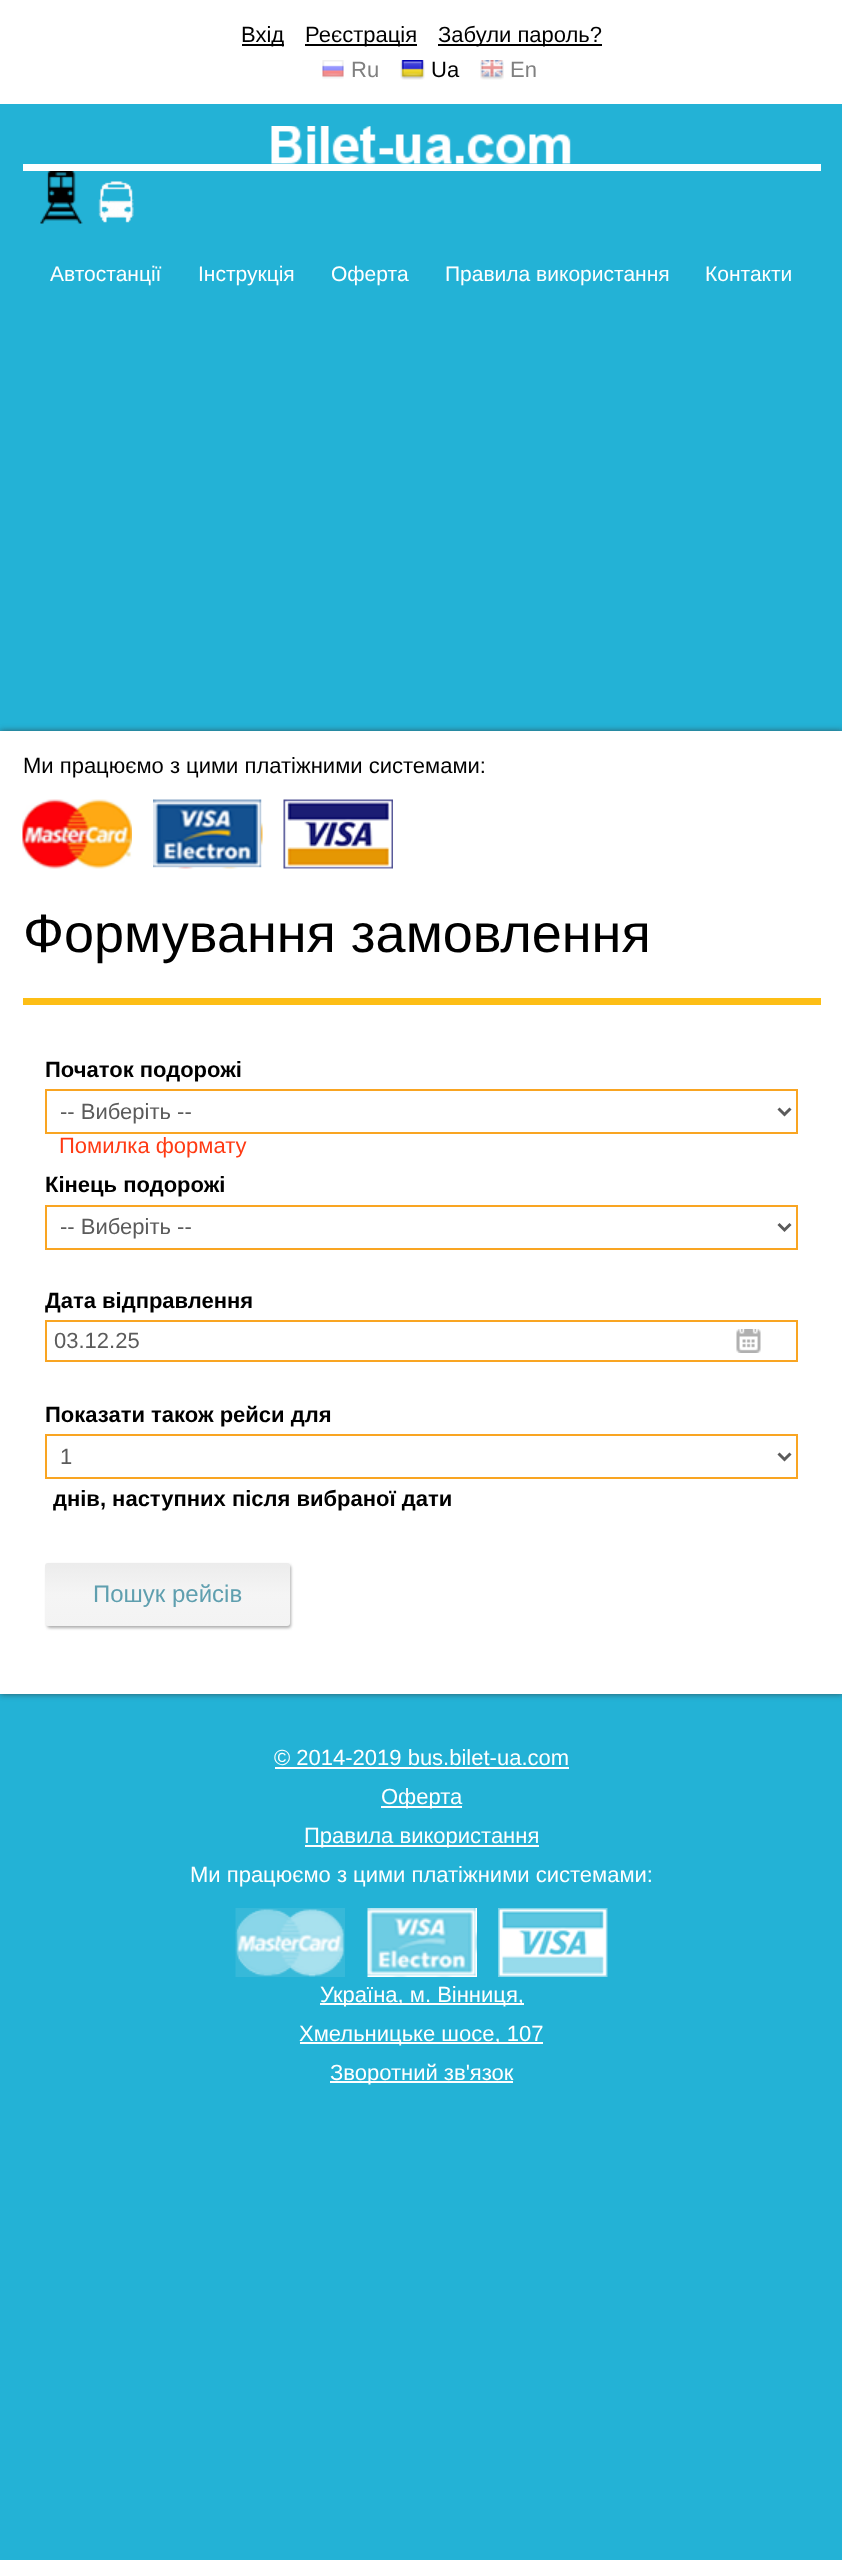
<svg xmlns="http://www.w3.org/2000/svg" width="842" height="2560" viewBox="0 0 842 2560">
  <style>
    .t1 { font: 22px Liberation Sans; fill: #000; }
    .t2 { font: 22px Liberation Sans; fill: #808080; }
    .t3 { font: 21px Liberation Sans; fill: #fff; }
    .t4 { font: 54px Liberation Sans; fill: #000; }
    .t5 { font: bold 22px Liberation Sans; fill: #000; }
    .t6 { font: 22px Liberation Sans; fill: #5b5b5b; }
    .t7 { font: 22px Liberation Sans; fill: #ff3a13; }
    .t8 { font: 24px Liberation Sans; fill: #5f9faf; }
    .t9 { font: 22px Liberation Sans; fill: #fff; }
  </style>
  <defs>
    <linearGradient id="g1" gradientUnits="userSpaceOnUse" x1="167" y1="1563" x2="167" y2="1626"><stop offset="0" stop-color="#ececec"/><stop offset="0.51" stop-color="#f5f5f5"/><stop offset="1" stop-color="#f3f3f3"/></linearGradient>
  </defs>
  <rect width="100%" height="100%" fill="#fff"/>
  <rect x="242" y="44" width="42" height="2" fill="#000"/>
  <text x="241" y="42" class="t1">Вхід</text>
  <rect x="305" y="44" width="112" height="2" fill="#000"/>
  <text x="305" y="42" class="t1">Реєстрація</text>
  <rect x="438" y="44" width="164" height="2" fill="#000"/>
  <text x="438" y="42" class="t1">Забули пароль?</text>
  <image x="322" y="60" width="22" height="19" href="images/1.png"/>
  <text x="351" y="77" class="t2">Ru</text>
  <image x="400" y="60" width="25" height="20" href="images/2.png"/>
  <text x="431" y="77" class="t1">Ua</text>
  <image x="480" y="60" width="24" height="20" href="images/3.png"/>
  <text x="510" y="77" class="t2">En</text>
  <rect x="0" y="104" width="842" height="2456" fill="#23b2d6"/>
  <image x="271" y="126" width="300" height="38" href="images/4.png"/>
  <rect x="23" y="164" width="798" height="7" fill="#fff"/>
  <image x="40" y="171" width="43" height="53" href="images/5.png"/>
  <image x="98" y="181" width="36" height="42" href="images/6.png"/>
  <text x="50" y="281" class="t3">Автостанції</text>
  <text x="198" y="281" class="t3">Інструкція</text>
  <text x="331" y="281" class="t3">Оферта</text>
  <text x="445" y="281" class="t3">Правила використання</text>
  <text x="705" y="281" class="t3">Контакти</text>
  <rect x="0" y="731" width="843" height="963" fill="#323232b3" filter="blur(3px)"/>
  <rect x="0" y="731" width="842" height="963" fill="#fff"/>
  <text x="23" y="773" class="t1">Ми працюємо з цими платіжними системами:</text>
  <image x="22" y="799" width="110" height="70" href="images/7.png"/>
  <image x="153" y="799" width="110" height="70" href="images/8.png"/>
  <image x="283" y="799" width="110" height="70" href="images/9.png"/>
  <text x="23" y="952" class="t4">Формування замовлення</text>
  <rect x="23" y="998" width="798" height="7" fill="#fdbe15"/>
  <text x="45" y="1077" class="t5">Початок подорожі</text>
  <rect x="46" y="1090" width="751" height="43" fill="none" stroke="#f9a522" stroke-width="2"/>
  <path d="M778.5 1108.5L784.5 1114.5L790.5 1108.5" fill="none" stroke="#5b5b5b" stroke-width="3"/>
  <text x="60" y="1119" class="t6">-- Виберіть --</text>
  <text x="59" y="1153" class="t7">Помилка формату</text>
  <text x="45" y="1192" class="t5">Кінець подорожі</text>
  <rect x="46" y="1206" width="751" height="43" fill="none" stroke="#f9a522" stroke-width="2"/>
  <path d="M778.5 1224L784.5 1230L790.5 1224" fill="none" stroke="#5b5b5b" stroke-width="3"/>
  <text x="60" y="1234" class="t6">-- Виберіть --</text>
  <text x="45" y="1308" class="t5">Дата відправлення</text>
  <image x="736" y="1329" width="25" height="24" href="images/10.png"/>
  <rect x="46" y="1321" width="751" height="40" fill="none" stroke="#f9a522" stroke-width="2"/>
  <text x="54" y="1348" class="t6">03.12.25</text>
  <text x="45" y="1422" class="t5">Показати також рейси для</text>
  <rect x="46" y="1435" width="751" height="43" fill="none" stroke="#f9a522" stroke-width="2"/>
  <path d="M778.5 1453.5L784.5 1459.5L790.5 1453.5" fill="none" stroke="#5b5b5b" stroke-width="3"/>
  <text x="60" y="1464" class="t6">1</text>
  <text x="53" y="1506" class="t5">днів, наступних після вибраної дати</text>
  <rect x="47" y="1565" width="244" height="63" rx="3" fill="#32323266" filter="blur(1.5px)"/>
  <rect x="45" y="1563" width="245" height="63" rx="3" fill="url(#g1)"/>
  <text x="93" y="1602" class="t8">Пошук рейсів</text>
  <text x="274" y="1765" class="t9">© 2014-2019 bus.bilet-ua.com</text>
  <rect x="275" y="1767" width="294" height="2" fill="#fff"/>
  <rect x="381" y="1806" width="81" height="2" fill="#fff"/>
  <text x="381" y="1804" class="t9">Оферта</text>
  <rect x="305" y="1845" width="234" height="2" fill="#fff"/>
  <text x="304" y="1843" class="t9">Правила використання</text>
  <text x="190" y="1882" class="t9">Ми працюємо з цими платіжними системами:</text>
  <image x="235" y="1908" width="110" height="69" href="images/11.png"/>
  <image x="367" y="1908" width="110" height="69" href="images/12.png"/>
  <image x="498" y="1908" width="110" height="69" href="images/13.png"/>
  <rect x="320" y="2003" width="204" height="2" fill="#fff"/>
  <text x="320" y="2002" class="t9">Україна, м. Вінниця,</text>
  <rect x="300" y="2042" width="243" height="2" fill="#fff"/>
  <text x="299" y="2041" class="t9">Хмельницьке шосе, 107</text>
  <rect x="330" y="2081" width="183" height="2" fill="#fff"/>
  <text x="330" y="2080" class="t9">Зворотний зв'язок</text>
</svg>
